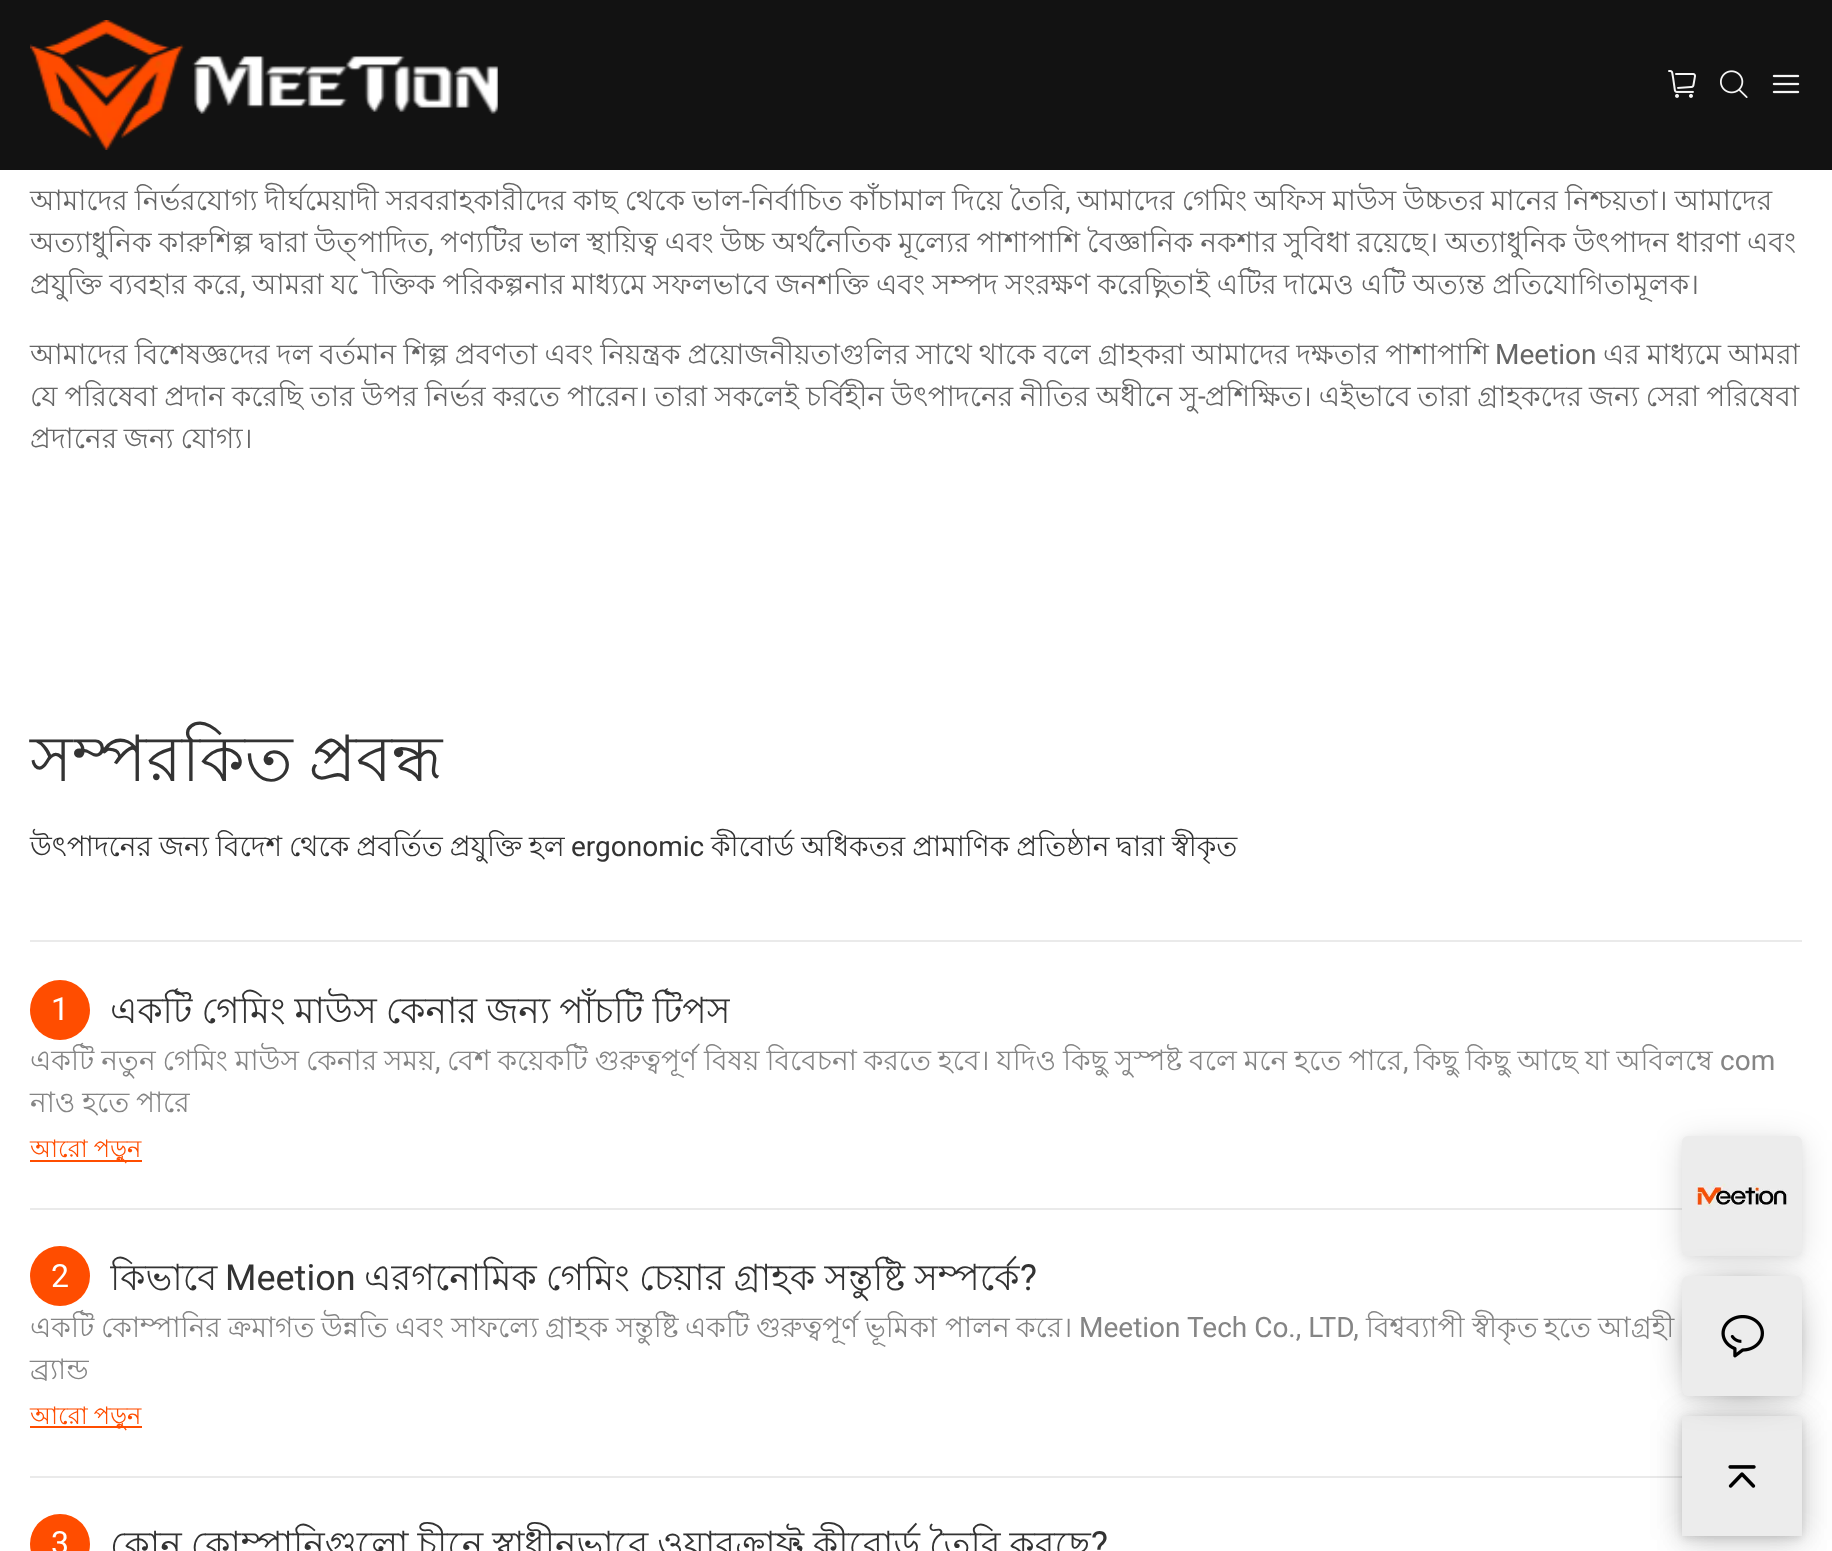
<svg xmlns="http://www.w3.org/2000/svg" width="1832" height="1551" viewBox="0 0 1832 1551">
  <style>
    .t1 { font: 28px Lohit Bengali; fill: #666; }
    .t2 { font: 28px Roboto; fill: #666; }
    .t3 { font: 64px Lohit Bengali; fill: #333; }
    .t4 { font: 28px Lohit Bengali; fill: #333; }
    .t5 { font: 28px Roboto; fill: #333; }
    .t6 { font: 32px Roboto; fill: #fff; }
    .t7 { font: 36px Lohit Bengali; fill: #333; }
    .t8 { font: 28px Lohit Bengali; fill: #858585; }
    .t9 { font: 28px Roboto; fill: #858585; }
    .t10 { font: 24px Lohit Bengali; fill: #ff4d00; }
    .t11 { font: 36px Roboto; fill: #333; }
  </style>
  <defs>
    <clipPath id="clip1"><rect x="110" y="982" width="620" height="54"/></clipPath>
    <clipPath id="clip2"><rect x="110" y="1250" width="926" height="54"/></clipPath>
    <clipPath id="clip3"><rect x="110" y="1518" width="998" height="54"/></clipPath>
  </defs>
  <rect width="100%" height="100%" fill="#fff"/>
  <rect x="0" y="0" width="1832" height="170" fill="#121212"/>
  <image x="30" y="20" width="468" height="130" href="images/1.png"/>
  <image x="1668" y="70" width="28" height="28" href="images/2.png"/>
  <image x="1720" y="70" width="28" height="28" href="images/3.png"/>
  <image x="1772" y="74" width="28" height="20" href="images/4.png"/>
  <text x="30" y="210" word-spacing="-0.75" class="t1">আমাদের নির্ভরযোগ্য দীর্ঘমেয়াদী সরবরাহকারীদের কাছ থেকে ভাল</text>
  <text x="742" y="210" class="t2">-</text>
  <text x="750" y="210" word-spacing="-0.75" class="t1">নির্বাচিত কাঁচামাল দিয়ে তৈরি</text>
  <text x="1077" y="210" word-spacing="-0.75" class="t1">আমাদের গেমিং অফিস মাউস উচ্চতর মানের নিশ্চয়তা। আমাদের</text>
  <text x="1065" y="210" class="t2">,</text>
  <text x="30" y="252" word-spacing="-0.75" class="t1">অত্যাধুনিক কারুশিল্প দ্বারা উত্পাদিত</text>
  <text x="428" y="252" class="t2">,</text>
  <text x="440" y="252" word-spacing="-0.75" class="t1">পণ্যটির ভাল স্থায়িত্ব এবং উচ্চ অর্থনৈতিক মূল্যের পাশাপাশি বৈজ্ঞানিক নকশার সুবিধা রয়েছে। অত্যাধুনিক উৎপাদন ধারণা এবং</text>
  <text x="30" y="294" word-spacing="-0.75" class="t1">প্রযুক্তি ব্যবহার করে</text>
  <text x="240" y="294" class="t2">,</text>
  <text x="252" y="294" word-spacing="-0.75" class="t1">আমরা যৌক্তিক পরিকল্পনার মাধ্যমে সফলভাবে জনশক্তি এবং সম্পদ সংরক্ষণ করেছি</text>
  <text x="1155" y="294" class="t2">,</text>
  <text x="1166" y="294" word-spacing="-0.75" class="t1">তাই এটির দামেও এটি অত্যন্ত প্রতিযোগিতামূলক।</text>
  <text x="30" y="364" word-spacing="-0.75" class="t1">আমাদের বিশেষজ্ঞদের দল বর্তমান শিল্প প্রবণতা এবং নিয়ন্ত্রক প্রয়োজনীয়তাগুলির সাথে থাকে বলে গ্রাহকরা আমাদের দক্ষতার পাশাপাশি</text>
  <text x="1495" y="364" class="t2">Meetion</text>
  <text x="1603" y="364" word-spacing="-0.75" class="t1">এর মাধ্যমে আমরা</text>
  <text x="30" y="406" word-spacing="-0.75" class="t1">যে পরিষেবা প্রদান করেছি তার উপর নির্ভর করতে পারেন। তারা সকলেই চর্বিহীন উৎপাদনের নীতির অধীনে সু প্রশিক্ষিত। এইভাবে তারা গ্রাহকদের জন্য সেরা পরিষেবা</text>
  <text x="1198" y="406" class="t2">-</text>
  <text x="30" y="448" word-spacing="-1" class="t1">প্রদানের জন্য যোগ্য।</text>
  <text x="30" y="781" word-spacing="-2" class="t3">সম্পরকিত প্রবন্ধ</text>
  <text x="30" y="856" word-spacing="-0.75" class="t4">উৎপাদনের জন্য বিদেশ থেকে প্রবর্তিত প্রযুক্তি হল</text>
  <text x="571" y="856" class="t5">ergonomic</text>
  <text x="711" y="856" word-spacing="-0.75" class="t4">কীবোর্ড অধিকতর প্রামাণিক প্রতিষ্ঠান দ্বারা স্বীকৃত</text>
  <rect x="30" y="940" width="1772" height="2" fill="#eaeaea"/>
  <circle cx="60" cy="1010" r="30" fill="#ff4d00"/>
  <text x="51" y="1020" class="t6">1</text>
  <g clip-path="url(#clip1)">
    <text x="110" y="1023" word-spacing="-1" class="t7">একটি গেমিং মাউস কেনার জন্য পাঁচটি টিপস</text>
  </g>
  <text x="30" y="1070" word-spacing="-0.75" class="t8">একটি নতুন গেমিং মাউস কেনার সময়</text>
  <text x="435" y="1070" class="t9">,</text>
  <text x="447" y="1070" word-spacing="-0.75" class="t8">বেশ কয়েকটি গুরুত্বপূর্ণ বিষয় বিবেচনা করতে হবে। যদিও কিছু সুস্পষ্ট বলে মনে হতে পারে</text>
  <text x="1403" y="1070" class="t9">,</text>
  <text x="1414" y="1070" word-spacing="-0.75" class="t8">কিছু কিছু আছে যা অবিলম্বে</text>
  <text x="1720" y="1070" class="t9">com</text>
  <text x="30" y="1112" word-spacing="-1" class="t8">নাও হতে পারে</text>
  <rect x="30" y="1160" width="112" height="2" fill="#ff4d00"/>
  <text x="30" y="1157" word-spacing="-0.75" class="t10">আরো পড়ুন</text>
  <rect x="30" y="1208" width="1652" height="2" fill="#eaeaea"/>
  <circle cx="60" cy="1276" r="30" fill="#ff4d00"/>
  <text x="51" y="1287" class="t6">2</text>
  <g clip-path="url(#clip2)">
    <text x="110" y="1290" class="t7">কিভাবে</text>
  </g>
  <text x="225" y="1290" class="t11">Meetion</text>
  <text x="364" y="1290" word-spacing="-0.75" class="t7">এরগনোমিক গেমিং চেয়ার গ্রাহক সন্তুষ্টি সম্পর্কে</text>
  <text x="1020" y="1290" class="t11">?</text>
  <text x="30" y="1337" class="t8">একটি</text>
  <text x="101" y="1337" class="t8">কোম্পানির</text>
  <text x="228" y="1337" class="t8">ক্রমাগত</text>
  <text x="321" y="1337" class="t8">উন্নতি</text>
  <text x="395" y="1337" class="t8">এবং</text>
  <text x="451" y="1337" class="t8">সাফল্যে</text>
  <text x="545" y="1337" class="t8">গ্রাহক</text>
  <text x="616" y="1337" class="t8">সন্তুষ্টি</text>
  <text x="685" y="1337" class="t8">একটি</text>
  <text x="756" y="1337" class="t8">গুরুত্বপূর্ণ</text>
  <text x="865" y="1337" class="t8">ভূমিকা</text>
  <text x="945" y="1337" class="t8">পালন</text>
  <text x="1016" y="1337" class="t8">করে।</text>
  <text x="1079" y="1337" class="t9">Meetion Tech Co., LTD,</text>
  <text x="1366" y="1337" class="t8">বিশ্বব্যাপী</text>
  <text x="1472" y="1337" class="t8">স্বীকৃত</text>
  <text x="1544" y="1337" class="t8">হতে</text>
  <text x="1598" y="1337" class="t8">আগ্রহী</text>
  <text x="30" y="1379" class="t8">ব্র্যান্ড</text>
  <rect x="30" y="1426" width="112" height="2" fill="#ff4d00"/>
  <text x="30" y="1424" word-spacing="-0.75" class="t10">আরো পড়ুন</text>
  <rect x="30" y="1476" width="1652" height="2" fill="#eaeaea"/>
  <circle cx="60" cy="1544" r="30" fill="#ff4d00"/>
  <text x="51" y="1554" class="t6">3</text>
  <g clip-path="url(#clip3)">
    <text x="110" y="1557" word-spacing="-1" class="t7">কোন কোম্পানিগুলো চীনে স্বাধীনভাবে ওয়ারক্রাফ্ট কীবোর্ড তৈরি করছে</text>
  </g>
  <text x="1091" y="1557" class="t11">?</text>
  <rect x="1682" y="1420" width="120" height="120" rx="6" fill="#0000001f" filter="blur(16px)"/>
  <rect x="1682" y="1418" width="120" height="120" rx="6" fill="#0000000f" filter="blur(4px)"/>
  <rect x="1682" y="1420" width="120" height="120" fill="#0000001f" filter="blur(16px)"/>
  <rect x="1682" y="1418" width="120" height="120" fill="#0000000f" filter="blur(4px)"/>
  <rect x="1682" y="1416" width="120" height="120" fill="#ececec"/>
  <rect x="1682" y="1140" width="120" height="120" rx="6" fill="#0000001f" filter="blur(16px)"/>
  <rect x="1682" y="1138" width="120" height="120" rx="6" fill="#0000000f" filter="blur(4px)"/>
  <rect x="1682" y="1136" width="120" height="120" rx="6" fill="#ececec"/>
  <rect x="1682" y="1280" width="120" height="120" rx="60" fill="#0000001f" filter="blur(16px)"/>
  <rect x="1682" y="1278" width="120" height="120" rx="60" fill="#0000000f" filter="blur(4px)"/>
  <rect x="1682" y="1280" width="120" height="120" rx="6" fill="#0000001f" filter="blur(16px)"/>
  <rect x="1682" y="1278" width="120" height="120" rx="6" fill="#0000000f" filter="blur(4px)"/>
  <rect x="1682" y="1276" width="120" height="120" rx="6" fill="#ececec"/>
  <image x="1721" y="1315" width="43" height="43" href="images/5.png"/>
  <image x="1728" y="1465" width="28" height="23" href="images/6.png"/>
  <image x="1696" y="1183" width="92" height="26" href="images/7.png"/>
</svg>
